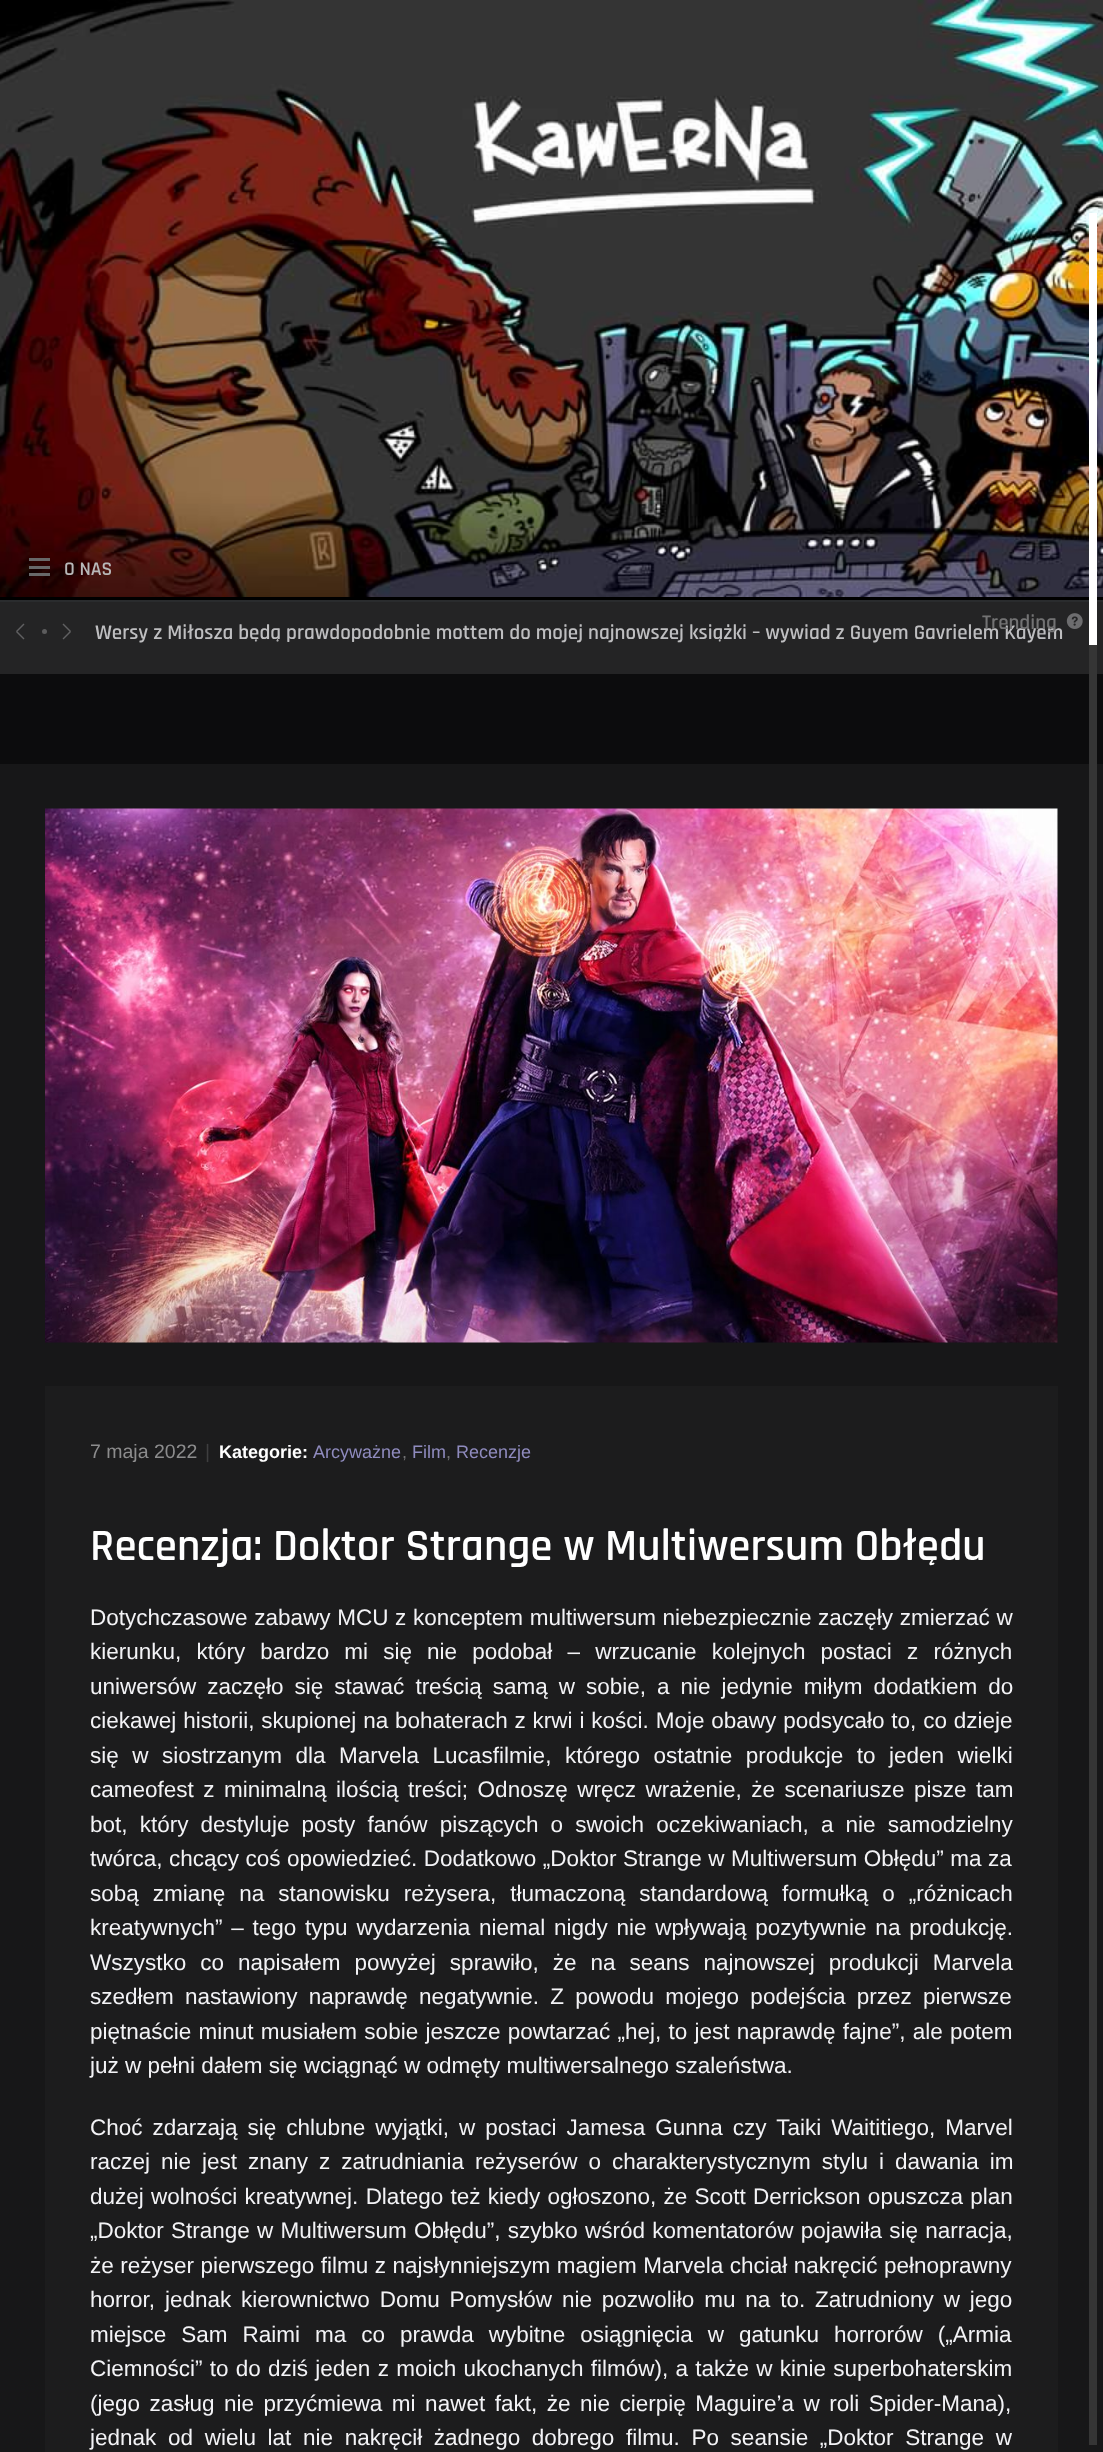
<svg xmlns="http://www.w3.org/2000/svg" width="1103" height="2452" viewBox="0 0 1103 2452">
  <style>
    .t1 { font: 600 19.5px Rajdhani; fill: #b8b8b9; }
    .t2 { font: 600 21px Rajdhani; fill: #bebec0; }
    .t3 { font: 600 21px Rajdhani; fill: #737374; }
    .t4 { font: 19.5px Liberation Sans; fill: #8c8c8d; }
    .t5 { font: 19.5px Liberation Sans; fill: #3e3e3f; }
    .t6 { font: bold 18px Liberation Sans; fill: #fff; }
    .t7 { font: 18px Liberation Sans; fill: #8f8bbe; }
    .t8 { font: 18px Liberation Sans; fill: #737374; }
    .t9 { font: 600 45px Rajdhani; fill: #fff; }
    .t10 { font: 22.5px Liberation Sans; fill: #f3f3f6; }
  </style>
  <rect width="100%" height="100%" fill="#0c0c0d"/>
  <image x="0" y="0" width="1103" height="597" href="images/1.png"/>
  <rect x="0" y="597" width="1103" height="3" fill="#000"/>
  <rect x="0" y="600" width="1103" height="2" fill="#2a2c2e"/>
  <rect x="0" y="602" width="1103" height="72" fill="#242425"/>
  <rect x="1089" y="213" width="8" height="432" fill="#fff"/>
  <rect x="29" y="558" width="21" height="3" fill="#686869"/>
  <rect x="29" y="573" width="21" height="3" fill="#686869"/>
  <rect x="29" y="566" width="21" height="3" fill="#686869"/>
  <text x="64" y="575" class="t1">O NAS</text>
  <path d="M63.5 623.5L71 631L70 632L62.5 624.5Z" fill="#606062"/>
  <circle cx="44.5" cy="631.5" r="2.5" fill="#5c5c5d"/>
  <path d="M62.5 638.5L70 631L71 632L63.5 639.5ZM16 631L23.5 623.5L24.5 624.5L17 632Z" fill="#606062"/>
  <text x="95" y="639" class="t2">Wersy z Miłosza będą prawdopodobnie mottem do mojej najnowszej książki – wywiad z Guyem Gavrielem Kayem</text>
  <text x="982" y="629" class="t3">Trending</text>
  <image x="1066" y="613" width="17" height="16" href="images/2.png"/>
  <path d="M17 631L24.5 638.5L23.5 639.5L16 632Z" fill="#606062"/>
  <rect x="0" y="764" width="1103" height="1688" fill="#171718"/>
  <image x="45" y="808" width="1013" height="535" href="images/3.png"/>
  <rect x="45" y="1386" width="1013" height="1066" fill="#1c1c1d"/>
  <text x="90" y="1458" class="t4">7 maja 2022</text>
  <text x="205" y="1458" class="t5">|</text>
  <text x="219" y="1458" class="t6">Kategorie:</text>
  <text x="313" y="1458" class="t7">Arcyważne</text>
  <text x="402" y="1458" class="t8">,</text>
  <text x="412" y="1458" class="t7">Film</text>
  <text x="446" y="1458" class="t8">,</text>
  <text x="456" y="1458" class="t7">Recenzje</text>
  <text x="90" y="1560" class="t9">Recenzja: Doktor Strange w Multiwersum Obłędu</text>
  <text x="90" y="1625" word-spacing="0.4" class="t10">Dotychczasowe zabawy MCU z konceptem multiwersum niebezpiecznie zaczęły zmierzać w</text>
  <text x="90" y="1659" word-spacing="8.9" class="t10">kierunku, który bardzo mi się nie podobał – wrzucanie kolejnych postaci z różnych</text>
  <text x="90" y="1694" word-spacing="4.75" class="t10">uniwersów zaczęło się stawać treścią samą w sobie, a nie jedynie miłym dodatkiem do</text>
  <text x="90" y="1728" word-spacing="0.6" class="t10">ciekawej historii, skupionej na bohaterach z krwi i kości. Moje obawy podsycało to, co dzieje</text>
  <text x="90" y="1763" word-spacing="7.25" class="t10">się w siostrzanym dla Marvela Lucasfilmie, którego ostatnie produkcje to jeden wielki</text>
  <text x="90" y="1797" word-spacing="3.25" class="t10">cameofest z minimalną ilością treści; Odnoszę wręcz wrażenie, że scenariusze pisze tam</text>
  <text x="90" y="1832" word-spacing="5.9" class="t10">bot, który destyluje posty fanów piszących o swoich oczekiwaniach, a nie samodzielny</text>
  <text x="90" y="1866" word-spacing="0.25" class="t10">twórca, chcący coś opowiedzieć. Dodatkowo „Doktor Strange w Multiwersum Obłędu” ma za</text>
  <text x="90" y="1901" word-spacing="7.75" class="t10">sobą zmianę na stanowisku reżysera, tłumaczoną standardową formułką o „różnicach</text>
  <text x="90" y="1935" word-spacing="2.5" class="t10">kreatywnych” – tego typu wydarzenia niemal nigdy nie wpływają pozytywnie na produkcję.</text>
  <text x="90" y="1970" word-spacing="7.75" class="t10">Wszystko co napisałem powyżej sprawiło, że na seans najnowszej produkcji Marvela</text>
  <text x="90" y="2004" word-spacing="5" class="t10">szedłem nastawiony naprawdę negatywnie. Z powodu mojego podejścia przez pierwsze</text>
  <text x="90" y="2039" word-spacing="1" class="t10">piętnaście minut musiałem sobie jeszcze powtarzać „hej, to jest naprawdę fajne”, ale potem</text>
  <text x="90" y="2073" class="t10">już w pełni dałem się wciągnąć w odmęty multiwersalnego szaleństwa.</text>
  <text x="90" y="2135" word-spacing="3.75" class="t10">Choć zdarzają się chlubne wyjątki, w postaci Jamesa Gunna czy Taiki Waititiego, Marvel</text>
  <text x="90" y="2169" word-spacing="4.75" class="t10">raczej nie jest znany z zatrudniania reżyserów o charakterystycznym stylu i dawania im</text>
  <text x="90" y="2204" word-spacing="1" class="t10">dużej wolności kreatywnej. Dlatego też kiedy ogłoszono, że Scott Derrickson opuszcza plan</text>
  <text x="90" y="2238" word-spacing="1" class="t10">„Doktor Strange w Multiwersum Obłędu”, szybko wśród komentatorów pojawiła się narracja,</text>
  <text x="90" y="2273" word-spacing="0.25" class="t10">że reżyser pierwszego filmu z najsłynniejszym magiem Marvela chciał nakręcić pełnoprawny</text>
  <text x="90" y="2307" word-spacing="3.6" class="t10">horror, jednak kierownictwo Domu Pomysłów nie pozwoliło mu na to. Zatrudniony w jego</text>
  <text x="90" y="2342" word-spacing="8.75" class="t10">miejsce Sam Raimi ma co prawda wybitne osiągnięcia w gatunku horrorów („Armia</text>
  <text x="90" y="2376" word-spacing="1" class="t10">Ciemności” to do dziś jeden z moich ukochanych filmów), a także w kinie superbohaterskim</text>
  <text x="90" y="2411" word-spacing="3.25" class="t10">(jego zasług nie przyćmiewa mi nawet fakt, że nie cierpię Maguire’a w roli Spider-Mana),</text>
  <text x="90" y="2445" word-spacing="5.4" class="t10">jednak od wielu lat nie nakręcił żadnego dobrego filmu. Po seansie „Doktor Strange w</text>
  <rect x="1089" y="645" width="8" height="1800" fill="#353535"/>
</svg>
